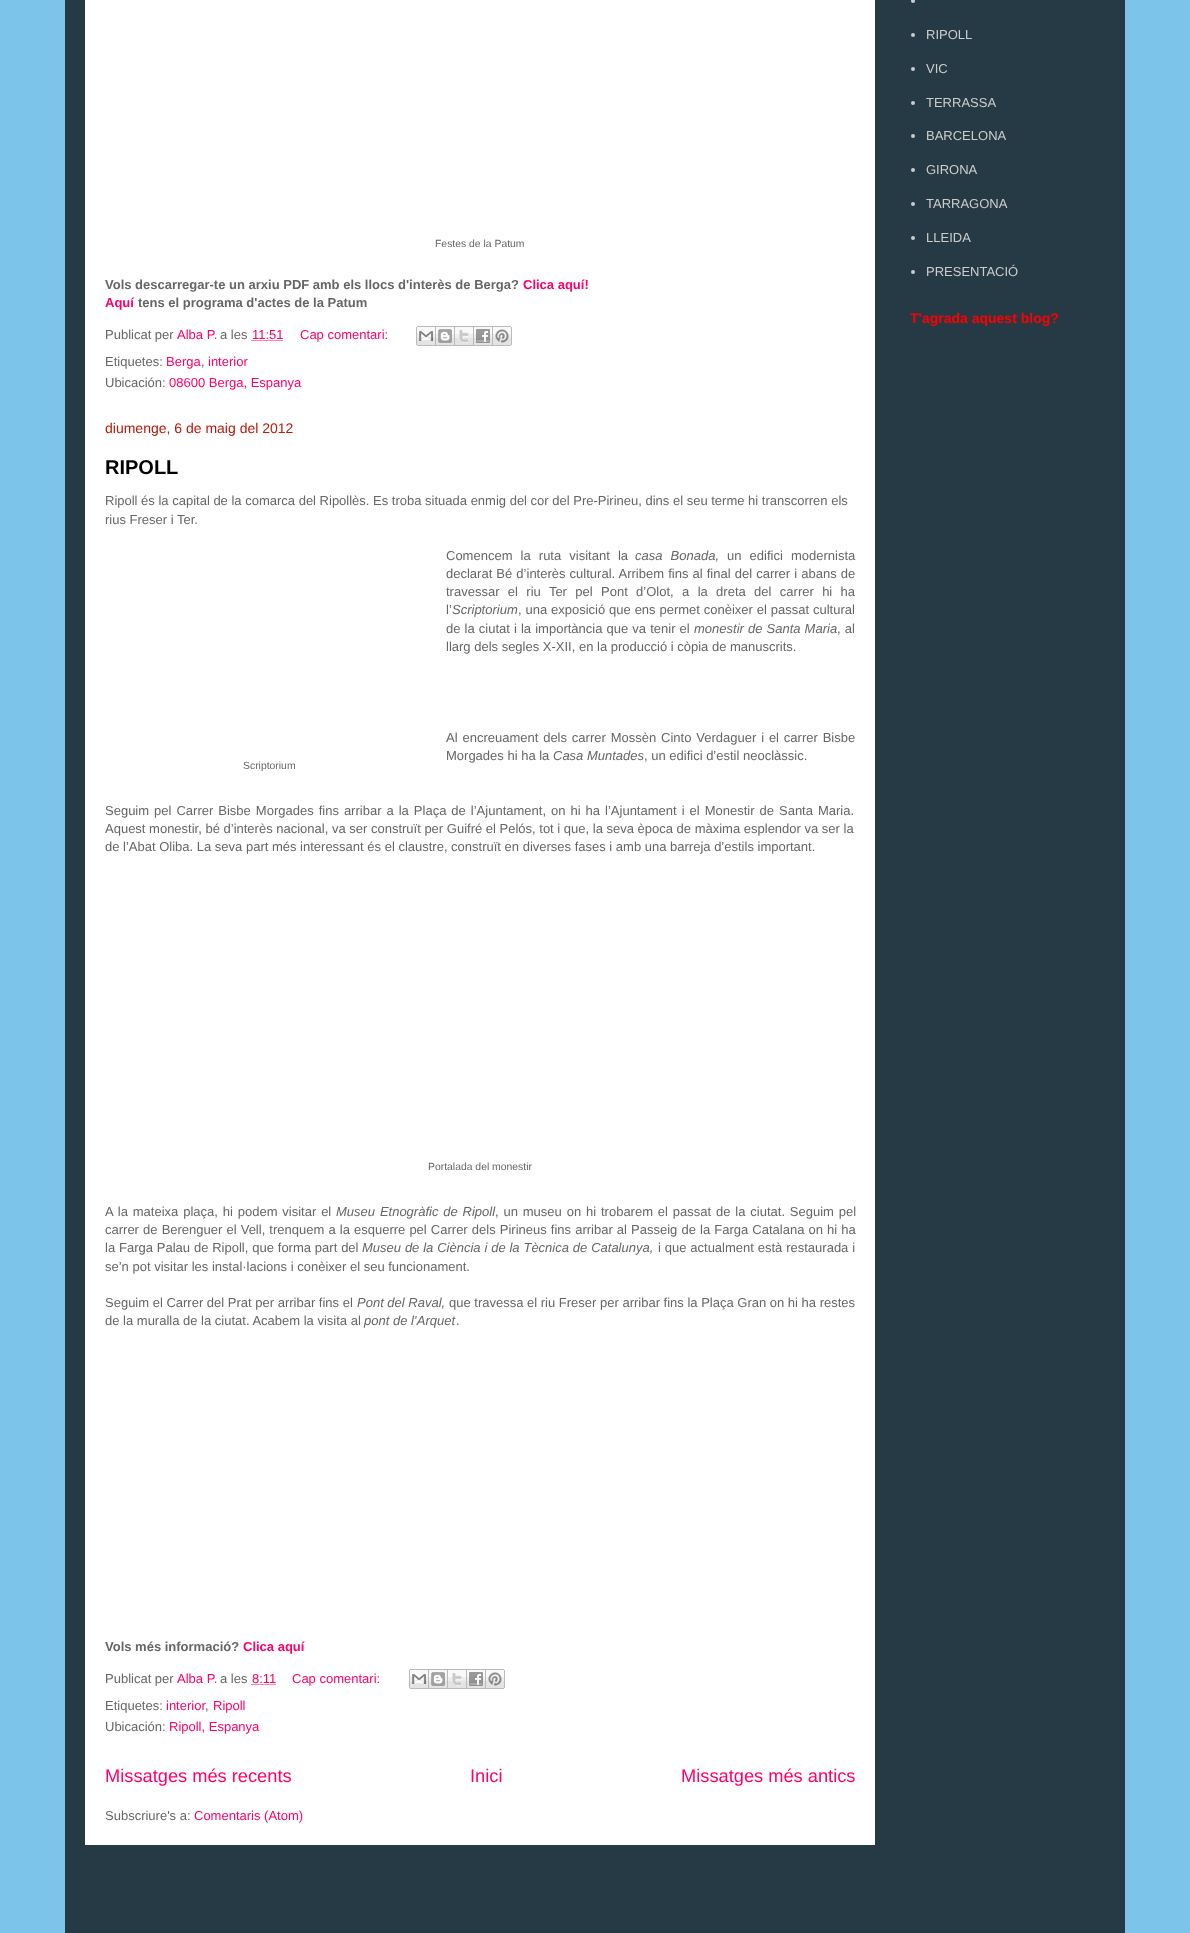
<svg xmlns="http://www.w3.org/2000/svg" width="1190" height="1933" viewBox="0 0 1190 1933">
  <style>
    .t1 { font: 13px Liberation Sans; fill: #ccc; }
    .t2 { font: bold 14px Liberation Sans; fill: #f00; }
    .t3 { font: 10.4px Liberation Sans; fill: #666; }
    .t4 { font: bold 13px Liberation Sans; fill: #666; }
    .t5 { font: bold 13px Liberation Sans; fill: #f06; }
    .t6 { font: 13px Liberation Sans; fill: #666; }
    .t7 { font: 13px Liberation Sans; fill: #f06; }
    .t8 { font: 14px Liberation Sans; fill: #b81909; }
    .t9 { font: bold 20px Liberation Sans; fill: #000; }
    .t10 { font: italic 13px Liberation Sans; fill: #666; }
    .t11 { font: 18.25px Liberation Sans; fill: #f06; }
  </style>
  <rect width="100%" height="100%" fill="#7cc4ea"/>
  <rect x="65" y="0" width="1060" height="1933" fill="#263a45"/>
  <circle cx="913" cy="1" r="2" fill="#ccc"/>
  <circle cx="913" cy="35" r="2" fill="#ccc"/>
  <text x="926" y="39" class="t1">RIPOLL</text>
  <circle cx="913" cy="69" r="2" fill="#ccc"/>
  <text x="926" y="73" class="t1">VIC</text>
  <circle cx="913" cy="103" r="2" fill="#ccc"/>
  <text x="926" y="107" class="t1">TERRASSA</text>
  <circle cx="913" cy="136" r="2" fill="#ccc"/>
  <text x="926" y="140" class="t1">BARCELONA</text>
  <circle cx="913" cy="170" r="2" fill="#ccc"/>
  <text x="926" y="174" class="t1">GIRONA</text>
  <circle cx="913" cy="204" r="2" fill="#ccc"/>
  <text x="926" y="208" class="t1">TARRAGONA</text>
  <circle cx="913" cy="238" r="2" fill="#ccc"/>
  <text x="926" y="242" class="t1">LLEIDA</text>
  <circle cx="913" cy="272" r="2" fill="#ccc"/>
  <text x="926" y="276" class="t1">PRESENTACIÓ</text>
  <text x="910" y="323" class="t2">T'agrada aquest blog?</text>
  <rect x="85" y="0" width="790" height="1845" fill="#fff"/>
  <text x="435" y="247" class="t3">Festes de la Patum</text>
  <text x="105" y="289" class="t4">Vols descarregar-te un arxiu PDF amb els llocs d'interès de Berga?</text>
  <text x="523" y="289" class="t5">Clica aquí!</text>
  <text x="105" y="307" class="t5">Aquí</text>
  <text x="138" y="307" class="t4">tens el programa d'actes de la Patum</text>
  <text x="105" y="339" class="t6">Publicat per</text>
  <text x="177" y="339" class="t7">Alba P.</text>
  <text x="220" y="339" class="t6">a les</text>
  <text x="252" y="339" class="t7">11:51</text>
  <path d="M251.5 340.5H283" fill="none" stroke="#f06" stroke-dasharray="1 1"/>
  <text x="300" y="339" class="t7">Cap comentari:</text>
  <image x="416" y="326" width="20" height="20" href="images/1.png"/>
  <image x="436" y="326" width="19" height="20" href="images/2.png"/>
  <image x="455" y="326" width="19" height="20" href="images/3.png"/>
  <image x="474" y="326" width="19" height="20" href="images/4.png"/>
  <image x="493" y="326" width="19" height="20" href="images/5.png"/>
  <text x="105" y="366" class="t6">Etiquetes:</text>
  <text x="166" y="366" class="t7">Berga</text>
  <text x="201" y="366" class="t6">,</text>
  <text x="208" y="366" class="t7">interior</text>
  <text x="105" y="387" class="t6">Ubicación:</text>
  <text x="169" y="387" class="t7">08600 Berga, Espanya</text>
  <text x="105" y="433" class="t8">diumenge, 6 de maig del 2012</text>
  <text x="105" y="474" class="t9">RIPOLL</text>
  <text x="105" y="505" class="t6">Ripoll és la capital de la comarca del Ripollès. Es troba situada enmig del cor del Pre-Pirineu, dins el seu terme hi transcorren els</text>
  <text x="105" y="524" class="t6">rius Freser i Ter.</text>
  <text x="446" y="560" word-spacing="4.5" class="t6">Comencem la ruta visitant la</text>
  <text x="635" y="560" word-spacing="4.5" class="t10">casa Bonada,</text>
  <text x="727" y="560" word-spacing="4.5" class="t6">un edifici modernista</text>
  <text x="446" y="578" word-spacing="0.5" class="t6">declarat Bé d’interès cultural. Arribem fins al final del carrer i abans de</text>
  <text x="446" y="596" word-spacing="4.75" class="t6">travessar el riu Ter pel Pont d’Olot, a la dreta del carrer hi ha</text>
  <text x="446" y="614" class="t6">l’</text>
  <text x="452" y="614" class="t10">Scriptorium</text>
  <text x="518" y="614" word-spacing="0.25" class="t6">, una exposició que ens permet conèixer el passat cultural</text>
  <text x="446" y="633" word-spacing="0.5" class="t6">de la ciutat i la importància que va tenir el</text>
  <text x="694" y="633" word-spacing="0.5" class="t10">monestir de Santa Maria</text>
  <text x="837" y="633" word-spacing="0.5" class="t6">, al</text>
  <text x="446" y="651" class="t6">llarg dels segles X-XII, en la producció i còpia de manuscrits.</text>
  <text x="446" y="742" word-spacing="1.25" class="t6">Al encreuament dels carrer Mossèn Cinto Verdaguer i el carrer Bisbe</text>
  <text x="446" y="760" class="t6">Morgades hi ha la</text>
  <text x="553" y="760" class="t10">Casa Muntades</text>
  <text x="644" y="760" class="t6">, un edifici d’estil neoclàssic.</text>
  <text x="105" y="815" word-spacing="1.4" class="t6">Seguim pel Carrer Bisbe Morgades fins arribar a la Plaça de l’Ajuntament, on hi ha l’Ajuntament i el Monestir de Santa Maria.</text>
  <text x="105" y="833" class="t6">Aquest monestir, bé d’interès nacional, va ser construït per Guifré el Pelós, tot i que, la seva època de màxima esplendor va ser la</text>
  <text x="105" y="851" class="t6">de l’Abat Oliba. La seva part més interessant és el claustre, construït en diverses fases i amb una barreja d’estils important.</text>
  <text x="428" y="1170" class="t3">Portalada del monestir</text>
  <text x="105" y="1216" word-spacing="1.25" class="t6">A la mateixa plaça, hi podem visitar el</text>
  <text x="336" y="1216" word-spacing="1.25" class="t10">Museu Etnogràfic de Ripoll</text>
  <text x="495" y="1216" word-spacing="1.25" class="t6">, un museu on hi trobarem el passat de la ciutat. Seguim pel</text>
  <text x="105" y="1234" word-spacing="0.5" class="t6">carrer de Berenguer el Vell, trenquem a la esquerre pel Carrer dels Pirineus fins arribar al Passeig de la Farga Catalana on hi ha</text>
  <text x="105" y="1252" word-spacing="0.25" class="t6">la Farga Palau de Ripoll, que forma part del</text>
  <text x="362" y="1252" word-spacing="0.25" class="t10">Museu de la Ciència i de la Tècnica de Catalunya,</text>
  <text x="658" y="1252" word-spacing="0.25" class="t6">i que actualment està restaurada i</text>
  <text x="105" y="1271" class="t6">se’n pot visitar les instal·lacions i conèixer el seu funcionament.</text>
  <text x="105" y="1307" class="t6">Seguim el Carrer del Prat per arribar fins el</text>
  <text x="357" y="1307" class="t10">Pont del Raval,</text>
  <text x="449" y="1307" class="t6">que travessa el riu Freser per arribar fins la Plaça Gran on hi ha restes</text>
  <text x="105" y="1325" class="t6">de la muralla de la ciutat. Acabem la visita al</text>
  <text x="364" y="1325" class="t10">pont de l’Arquet</text>
  <text x="456" y="1325" class="t6">.</text>
  <text x="105" y="1651" class="t4">Vols més informació?</text>
  <text x="243" y="1651" class="t5">Clica aquí</text>
  <text x="243" y="769" class="t3">Scriptorium</text>
  <text x="105" y="1683" class="t6">Publicat per</text>
  <text x="177" y="1683" class="t7">Alba P.</text>
  <text x="220" y="1683" class="t6">a les</text>
  <text x="252" y="1683" class="t7">8:11</text>
  <path d="M251.5 1684.5H276" fill="none" stroke="#f06" stroke-dasharray="1 1"/>
  <text x="292" y="1683" class="t7">Cap comentari:</text>
  <image x="409" y="1669" width="20" height="20" href="images/1.png"/>
  <image x="429" y="1669" width="19" height="20" href="images/2.png"/>
  <image x="448" y="1669" width="19" height="20" href="images/3.png"/>
  <image x="467" y="1669" width="19" height="20" href="images/4.png"/>
  <image x="486" y="1669" width="19" height="20" href="images/5.png"/>
  <text x="105" y="1710" class="t6">Etiquetes:</text>
  <text x="166" y="1710" class="t7">interior</text>
  <text x="205" y="1710" class="t6">,</text>
  <text x="213" y="1710" class="t7">Ripoll</text>
  <text x="105" y="1731" class="t6">Ubicación:</text>
  <text x="169" y="1731" class="t7">Ripoll, Espanya</text>
  <text x="105" y="1782" class="t11">Missatges més recents</text>
  <text x="470" y="1782" class="t11">Inici</text>
  <text x="681" y="1782" class="t11">Missatges més antics</text>
  <text x="105" y="1820" class="t6">Subscriure's a:</text>
  <text x="194" y="1820" class="t7">Comentaris (Atom)</text>
</svg>
